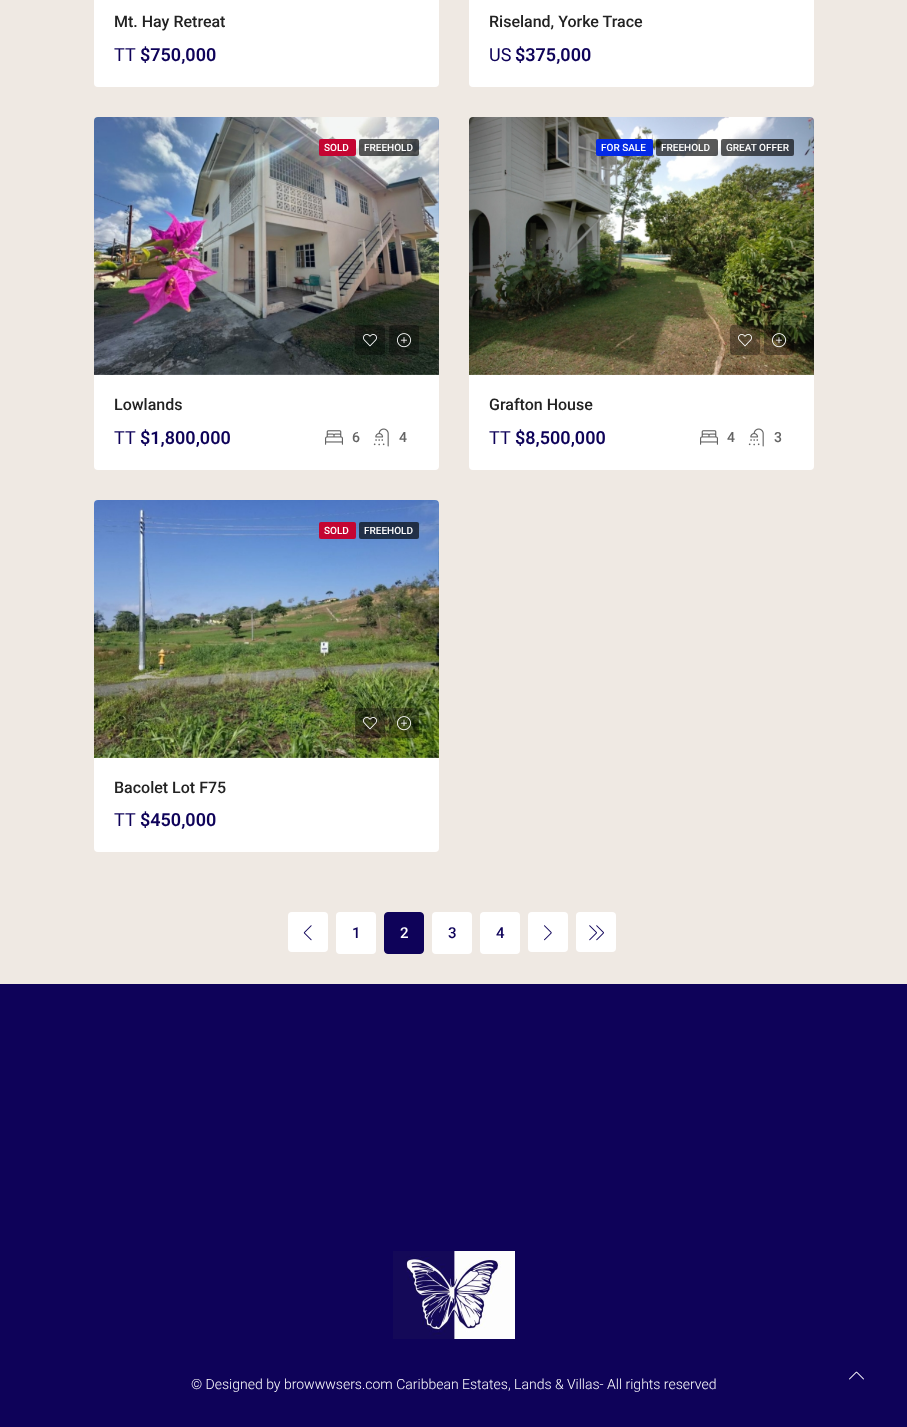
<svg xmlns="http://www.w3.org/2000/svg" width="907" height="1427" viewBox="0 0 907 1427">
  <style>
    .t1 { font: 500 16px Roboto; fill: #222; }
    .t2 { font: 18px Roboto; fill: #0e0259; }
    .t3 { font: 600 18px Roboto; fill: #0e0259; }
    .t4 { font: 500 10px Roboto; fill: #fff; }
    .t5 { font: 500 14px Roboto; fill: #636363; }
    .t6 { font: 500 15px Roboto; fill: #0e0259; }
    .t7 { font: 500 15px Roboto; fill: #fff; }
    .t8 { font: 300 14px Roboto; fill: #fff; }
  </style>
  <rect width="100%" height="100%" fill="#efe9e3"/>
  <rect x="94" y="-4" width="345" height="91" rx="4" fill="#fff"/>
  <text x="114" y="27" class="t1">Mt. Hay Retreat</text>
  <text x="114" y="61" class="t2">TT</text>
  <text x="140" y="61" class="t3">$750,000</text>
  <rect x="469" y="-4" width="345" height="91" rx="4" fill="#fff"/>
  <text x="489" y="27" class="t1">Riseland, Yorke Trace</text>
  <text x="489" y="61" class="t2">US</text>
  <text x="515" y="61" class="t3">$375,000</text>
  <rect x="94" y="117" width="345" height="353" rx="4" fill="#fff"/>
  <image x="94" y="117" width="345" height="258" href="images/1.png"/>
  <image x="438" y="119" width="1" height="248" href="images/2.png"/>
  <rect x="319" y="139" width="37" height="17" rx="2" fill="#c40532"/>
  <text x="324" y="151" class="t4">SOLD</text>
  <rect x="359" y="139" width="60" height="17" rx="2" fill="#000000a6"/>
  <text x="364" y="151" class="t4">FREEHOLD</text>
  <rect x="355" y="325" width="30" height="30" rx="4" fill="#00000059"/>
  <image x="363" y="334" width="14" height="13" href="images/3.png"/>
  <rect x="389" y="325" width="30" height="30" rx="4" fill="#00000059"/>
  <image x="397" y="333" width="14" height="15" href="images/4.png"/>
  <text x="114" y="410" class="t1">Lowlands</text>
  <text x="114" y="444" class="t2">TT</text>
  <text x="140" y="444" class="t3">$1,800,000</text>
  <image x="325" y="430" width="18" height="15" href="images/5.png"/>
  <text x="352" y="442" class="t5">6</text>
  <image x="373" y="428" width="16" height="19" href="images/6.png"/>
  <text x="399" y="442" class="t5">4</text>
  <rect x="469" y="117" width="345" height="353" rx="4" fill="#fff"/>
  <image x="469" y="117" width="345" height="258" href="images/7.png"/>
  <image x="813" y="118" width="1" height="248" href="images/8.png"/>
  <rect x="596" y="139" width="57" height="17" rx="2" fill="#042ae5"/>
  <text x="601" y="151" class="t4">FOR SALE</text>
  <rect x="656" y="139" width="62" height="17" rx="2" fill="#000000a6"/>
  <text x="661" y="151" class="t4">FREEHOLD</text>
  <rect x="721" y="139" width="73" height="17" rx="2" fill="#000000a6"/>
  <text x="726" y="151" class="t4">GREAT OFFER</text>
  <rect x="730" y="325" width="30" height="30" rx="4" fill="#00000059"/>
  <image x="738" y="334" width="14" height="13" href="images/9.png"/>
  <rect x="764" y="325" width="30" height="30" rx="4" fill="#00000059"/>
  <image x="772" y="333" width="14" height="15" href="images/10.png"/>
  <text x="489" y="410" class="t1">Grafton House</text>
  <text x="489" y="444" class="t2">TT</text>
  <text x="515" y="444" class="t3">$8,500,000</text>
  <image x="700" y="430" width="18" height="15" href="images/5.png"/>
  <text x="727" y="442" class="t5">4</text>
  <image x="748" y="428" width="16" height="19" href="images/6.png"/>
  <text x="774" y="442" class="t5">3</text>
  <rect x="94" y="500" width="345" height="352" rx="4" fill="#fff"/>
  <image x="94" y="500" width="345" height="258" href="images/11.png"/>
  <image x="438" y="535" width="1" height="222" href="images/12.png"/>
  <rect x="319" y="522" width="37" height="17" rx="2" fill="#c40532"/>
  <text x="324" y="534" class="t4">SOLD</text>
  <rect x="359" y="522" width="60" height="17" rx="2" fill="#000000a6"/>
  <text x="364" y="534" class="t4">FREEHOLD</text>
  <rect x="355" y="708" width="30" height="30" rx="4" fill="#00000059"/>
  <image x="363" y="717" width="14" height="13" href="images/13.png"/>
  <rect x="389" y="708" width="30" height="30" rx="4" fill="#00000059"/>
  <image x="397" y="716" width="14" height="15" href="images/14.png"/>
  <text x="114" y="793" class="t1">Bacolet Lot F75</text>
  <text x="114" y="826" class="t2">TT</text>
  <text x="140" y="826" class="t3">$450,000</text>
  <rect x="288" y="912" width="40" height="40" rx="4" fill="#fff"/>
  <image x="303" y="925" width="9" height="16" href="images/15.png"/>
  <rect x="336" y="912" width="40" height="42" rx="4" fill="#fff"/>
  <text x="352" y="938" class="t6">1</text>
  <rect x="384.5" y="912.5" width="39" height="41" rx="3.5" fill="#0e0259" stroke="#0e0259"/>
  <text x="400" y="938" class="t7">2</text>
  <rect x="432" y="912" width="40" height="42" rx="4" fill="#fff"/>
  <text x="448" y="938" class="t6">3</text>
  <rect x="480" y="912" width="40" height="42" rx="4" fill="#fff"/>
  <text x="496" y="938" class="t6">4</text>
  <rect x="528" y="912" width="40" height="40" rx="4" fill="#fff"/>
  <image x="544" y="925" width="8" height="16" href="images/16.png"/>
  <rect x="576" y="912" width="40" height="40" rx="4" fill="#fff"/>
  <image x="589" y="925" width="15" height="16" href="images/17.png"/>
  <rect x="0" y="984" width="907" height="443" fill="#0e0259"/>
  <image x="849" y="1371" width="15" height="9" href="images/18.png"/>
  <image x="393" y="1251" width="122" height="88" href="images/19.png"/>
  <text x="191" y="1389" class="t8">© Designed by browwwsers.com Caribbean Estates, Lands &amp; Villas- All rights reserved</text>
</svg>
